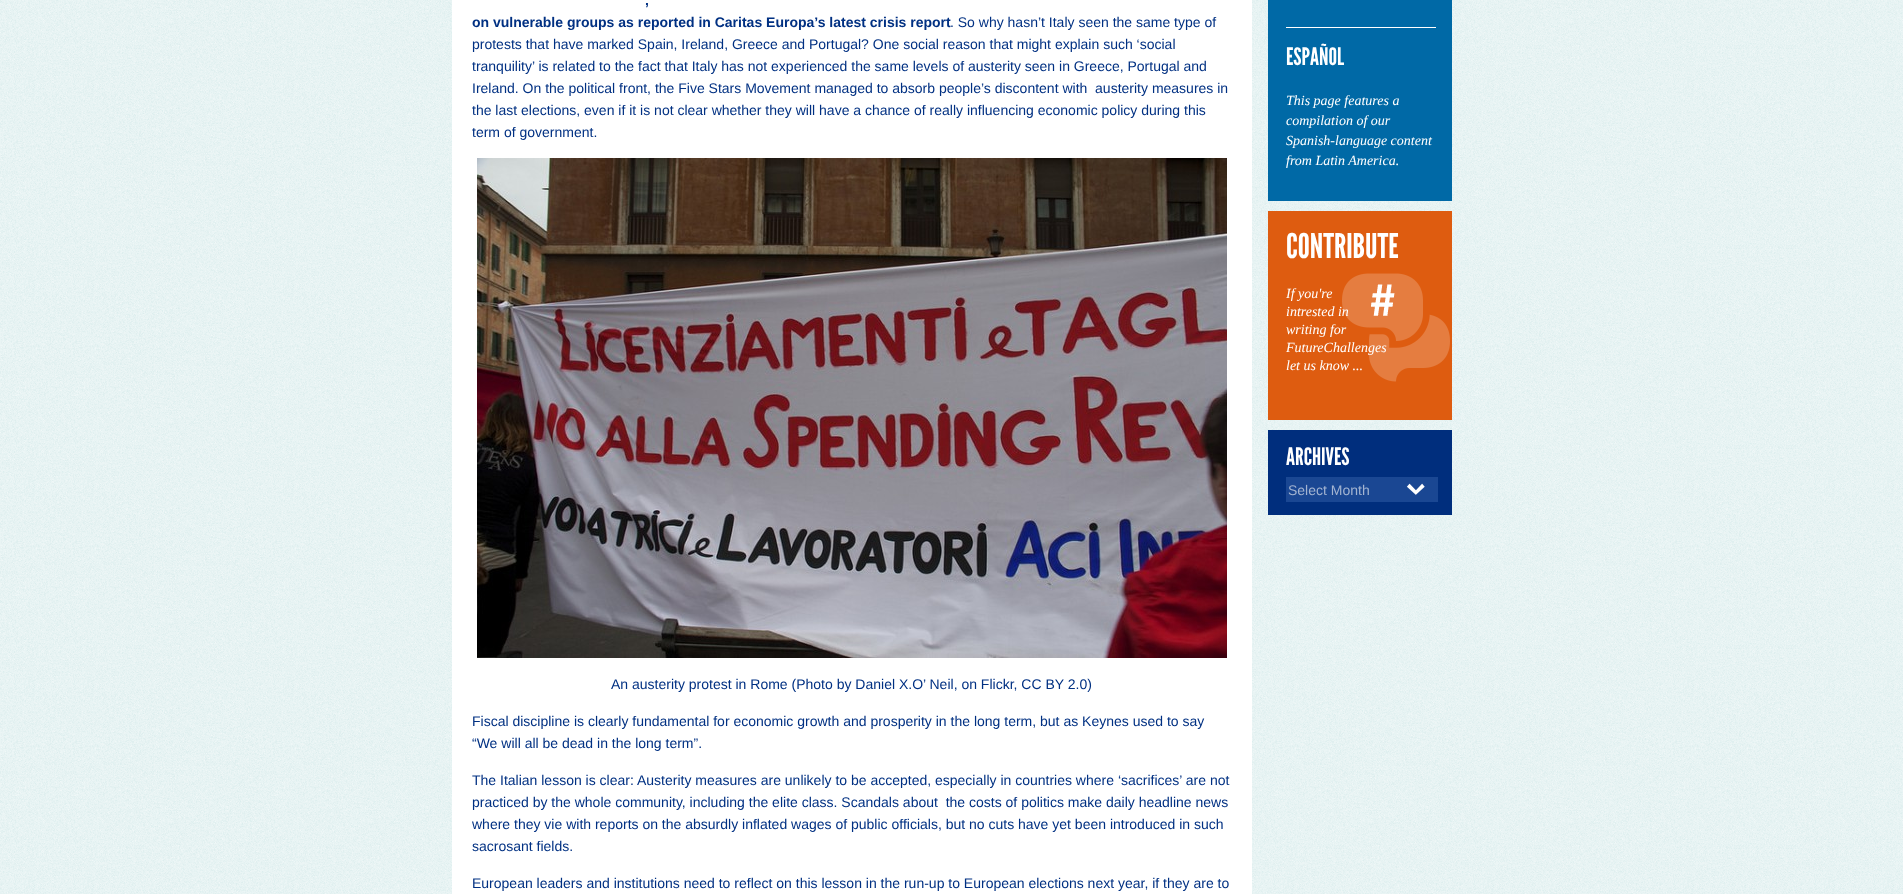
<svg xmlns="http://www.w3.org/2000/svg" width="1903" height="894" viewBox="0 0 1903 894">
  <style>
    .t1 { font: bold 14px Liberation Sans; fill: #003082; }
    .t2 { font: 14px Liberation Sans; fill: #003082; }
    .t3 { font: 24px League Gothic; fill: #fff; }
    .t4 { font: italic 14px Liberation Serif; fill: #fff; }
    .t5 { font: 34px League Gothic; fill: #fff; }
    .t6 { font: 14px Liberation Sans; fill: #a3b4d1; }
  </style>
  <rect width="100%" height="100%" fill="#fff"/>
  <image x="0" y="0" width="1903" height="894" href="images/1.png"/>
  <rect x="452" y="0" width="800" height="894" fill="#fff"/>
  <text x="645" y="5" class="t1">,</text>
  <text x="472" y="27" class="t1">on vulnerable groups as reported in Caritas Europa’s latest crisis report</text>
  <text x="950" y="27" class="t2">. So why hasn’t Italy seen the same type of</text>
  <text x="472" y="49" class="t2">protests that have marked Spain, Ireland, Greece and Portugal? One social reason that might explain such ‘social</text>
  <text x="472" y="71" class="t2">tranquility’ is related to the fact that Italy has not experienced the same levels of austerity seen in Greece, Portugal and</text>
  <text x="472" y="93" class="t2" xml:space="preserve">Ireland. On the political front, the Five Stars Movement managed to absorb people’s discontent with  austerity measures in</text>
  <text x="472" y="115" class="t2">the last elections, even if it is not clear whether they will have a chance of really influencing economic policy during this</text>
  <text x="472" y="137" class="t2">term of government.</text>
  <image x="477" y="158" width="750" height="500" href="images/2.png"/>
  <text x="611" y="689" class="t2">An austerity protest in Rome (Photo by Daniel X.O’ Neil, on Flickr, CC BY 2.0)</text>
  <text x="472" y="726" class="t2">Fiscal discipline is clearly fundamental for economic growth and prosperity in the long term, but as Keynes used to say</text>
  <text x="472" y="748" class="t2">“We will all be dead in the long term”.</text>
  <text x="472" y="785" class="t2">The Italian lesson is clear: Austerity measures are unlikely to be accepted, especially in countries where ‘sacrifices’ are not</text>
  <text x="472" y="807" class="t2" xml:space="preserve">practiced by the whole community, including the elite class. Scandals about  the costs of politics make daily headline news</text>
  <text x="472" y="829" class="t2">where they vie with reports on the absurdly inflated wages of public officials, but no cuts have yet been introduced in such</text>
  <text x="472" y="851" class="t2">sacrosant fields.</text>
  <text x="472" y="888" class="t2">European leaders and institutions need to reflect on this lesson in the run-up to European elections next year, if they are to</text>
  <rect x="1268" y="0" width="184" height="201" fill="#0069a6"/>
  <rect x="1286" y="27" width="150" height="1" fill="#fff"/>
  <text x="1286" y="65" class="t3">ESPAÑOL</text>
  <text x="1286" y="105" class="t4">This page features a</text>
  <text x="1286" y="125" class="t4">compilation of our</text>
  <text x="1286" y="145" class="t4">Spanish-language content</text>
  <text x="1286" y="165" class="t4">from Latin America.</text>
  <rect x="1268" y="211" width="184" height="209" fill="#de5c10"/>
  <image x="1342" y="273" width="108" height="109" href="images/3.png"/>
  <text x="1286" y="258" class="t5">CONTRIBUTE</text>
  <text x="1286" y="298" class="t4">If you're</text>
  <text x="1286" y="316" class="t4">intrested in</text>
  <text x="1286" y="334" class="t4">writing for</text>
  <text x="1286" y="352" class="t4">FutureChallenges</text>
  <text x="1286" y="370" class="t4">let us know ...</text>
  <rect x="1268" y="430" width="184" height="85" fill="#002e7d"/>
  <text x="1286" y="465" class="t3">ARCHIVES</text>
  <rect x="1286" y="477" width="152" height="25" fill="#1a4793"/>
  <image x="1406" y="483" width="19" height="12" href="images/4.png"/>
  <text x="1288" y="495" class="t6">Select Month</text>
</svg>
